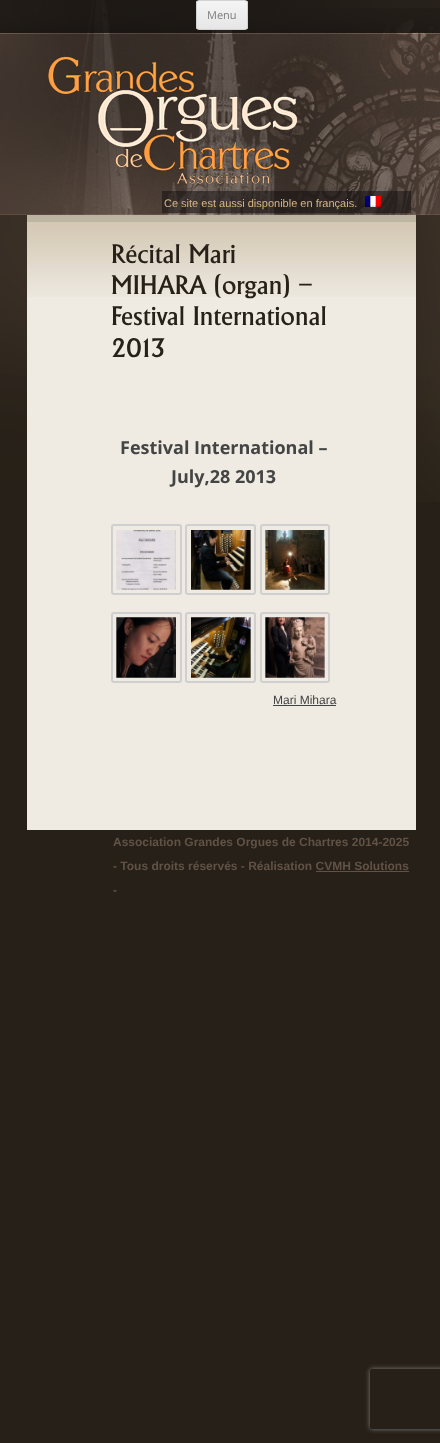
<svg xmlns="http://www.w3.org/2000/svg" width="440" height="1443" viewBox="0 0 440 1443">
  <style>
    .t1 { font: 11px Open Sans; fill: #7c7c7c; }
    .t2 { font: 11px Liberation Sans; fill: #d6b584; }
    .t3 { font: 500 26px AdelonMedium; fill: #272119; }
    .t4 { font: bold 18px Open Sans; fill: #444; }
    .t5 { font: 12px Liberation Sans; fill: #444; }
    .t6 { font: bold 12px Liberation Sans; fill: #615245; }
  </style>
  <defs>
    <clipPath id="clip1"><rect x="196" y="0" width="52" height="30" rx="3"/></clipPath>
    <linearGradient id="g1" gradientUnits="userSpaceOnUse" x1="222" y1="1" x2="222" y2="29"><stop offset="0" stop-color="#f4f4f4"/><stop offset="1" stop-color="#e6e6e6"/></linearGradient>
    <clipPath id="clip2"><path d="M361 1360H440V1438H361ZM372 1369H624C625 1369 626 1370 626 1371V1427C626 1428 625 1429 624 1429H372C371 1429 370 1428 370 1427V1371C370 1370 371 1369 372 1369Z" clip-rule="evenodd"/></clipPath>
  </defs>
  <rect width="100%" height="100%" fill="#262018"/>
  <image x="0" y="0" width="440" height="502" href="images/1.png"/>
  <g clip-path="url(#clip1)">
    <rect x="196" y="1" width="52" height="28" fill="url(#g1)"/>
  </g>
  <rect x="196.5" y="0.5" width="51" height="29" rx="2.5" fill="none" stroke="#d2d2d2"/>
  <text x="207" y="19" class="t1">Menu</text>
  <image x="48" y="56" width="250" height="129" href="images/2.png"/>
  <rect x="162" y="191" width="249" height="22" fill="#130f0f87"/>
  <text x="164" y="207" class="t2">Ce site est aussi disponible en français.</text>
  <image x="365" y="196" width="16" height="11" href="images/3.png"/>
  <rect x="27" y="297" width="389" height="533" fill="#efebe3"/>
  <image x="27" y="215" width="389" height="82" href="images/4.png"/>
  <text x="111" y="263" class="t3">Récital Mari</text>
  <text x="111" y="294" class="t3">MIHARA (organ) –</text>
  <text x="111" y="325" class="t3">Festival International</text>
  <text x="111" y="357" class="t3">2013</text>
  <text x="120" y="454" class="t4">Festival International –</text>
  <text x="171" y="483" class="t4">July,28 2013</text>
  <rect x="112" y="525" width="69" height="69" rx="2" fill="none" stroke="#cfcfcf" stroke-width="2"/>
  <image x="116" y="530" width="60" height="60" href="images/5.png"/>
  <rect x="186" y="525" width="69" height="69" rx="2" fill="none" stroke="#cfcfcf" stroke-width="2"/>
  <image x="191" y="530" width="60" height="60" href="images/6.png"/>
  <rect x="261" y="525" width="68" height="69" rx="2" fill="none" stroke="#cfcfcf" stroke-width="2"/>
  <image x="265" y="530" width="60" height="60" href="images/7.png"/>
  <rect x="112" y="613" width="69" height="69" rx="2" fill="none" stroke="#cfcfcf" stroke-width="2"/>
  <image x="116" y="617" width="60" height="61" href="images/8.png"/>
  <rect x="186" y="613" width="69" height="69" rx="2" fill="none" stroke="#cfcfcf" stroke-width="2"/>
  <image x="191" y="617" width="60" height="61" href="images/9.png"/>
  <rect x="261" y="613" width="68" height="69" rx="2" fill="none" stroke="#cfcfcf" stroke-width="2"/>
  <image x="265" y="617" width="60" height="61" href="images/10.png"/>
  <text x="273" y="704" class="t5">Mari Mihara</text>
  <rect x="273" y="705" width="63" height="1" fill="#444"/>
  <text x="113" y="846" class="t6">Association Grandes Orgues de Chartres 2014-2025</text>
  <text x="113" y="870" class="t6">- Tous droits réservés - Réalisation CVMH Solutions</text>
  <rect x="316" y="871" width="93" height="1" fill="#615245"/>
  <text x="113" y="894" class="t6">-</text>
  <g clip-path="url(#clip2)">
    <rect x="370" y="1369" width="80" height="60" rx="2" fill="#808080" filter="blur(2.5px)"/>
  </g>
</svg>
